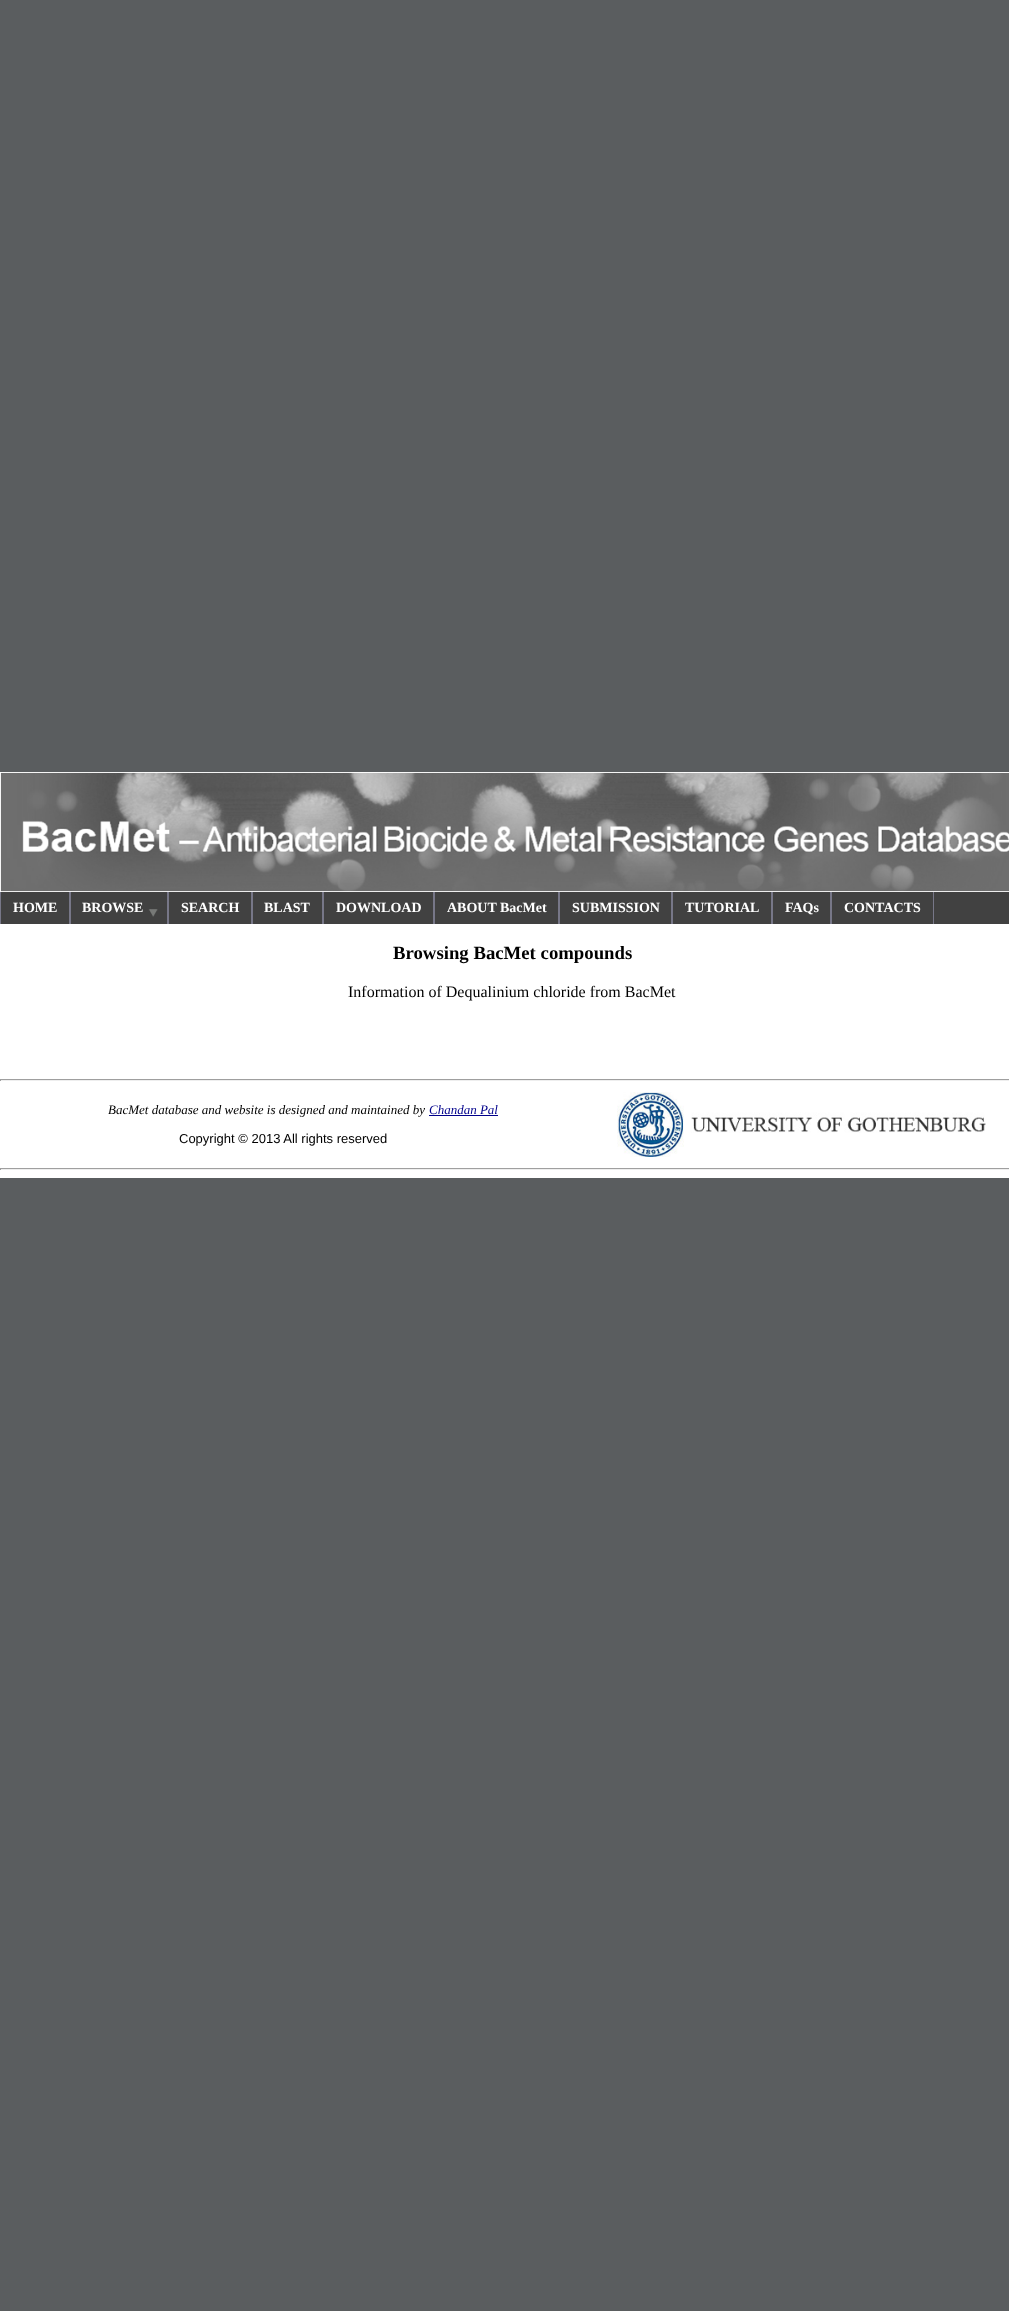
<svg xmlns="http://www.w3.org/2000/svg" width="1009" height="2311" viewBox="0 0 1009 2311">
  <style>
    .t1 { font: bold 14px Liberation Serif; fill: #fff; }
    .t2 { font: bold 18.75px Liberation Serif; fill: #000; }
    .t3 { font: 16px Liberation Serif; fill: #000; }
    .t4 { font: italic 13px Liberation Serif; fill: #000; }
    .t5 { font: italic 13px Liberation Serif; fill: #00008b; }
    .t6 { font: 13px Liberation Sans; fill: #000; }
  </style>
  <rect width="100%" height="100%" fill="#5a5d5f"/>
  <rect x="0" y="772" width="1009" height="406" fill="#fff"/>
  <image x="0" y="772" width="1009" height="120" href="images/1.png"/>
  <rect x="1" y="892" width="1008" height="32" fill="#414141"/>
  <rect x="69" y="892" width="2" height="32" fill="#778"/>
  <rect x="0" y="892" width="1" height="32" fill="#778"/>
  <text x="13" y="912" class="t1">HOME</text>
  <rect x="167" y="892" width="2" height="32" fill="#778"/>
  <text x="82" y="912" class="t1">BROWSE</text>
  <image x="148" y="909" width="10" height="8" href="images/2.png"/>
  <rect x="251" y="892" width="2" height="32" fill="#778"/>
  <text x="181" y="912" class="t1">SEARCH</text>
  <rect x="322" y="892" width="2" height="32" fill="#778"/>
  <text x="264" y="912" class="t1">BLAST</text>
  <rect x="433" y="892" width="2" height="32" fill="#778"/>
  <text x="336" y="912" class="t1">DOWNLOAD</text>
  <rect x="558" y="892" width="2" height="32" fill="#778"/>
  <text x="447" y="912" class="t1">ABOUT BacMet</text>
  <rect x="671" y="892" width="2" height="32" fill="#778"/>
  <text x="572" y="912" class="t1">SUBMISSION</text>
  <rect x="771" y="892" width="2" height="32" fill="#778"/>
  <text x="685" y="912" class="t1">TUTORIAL</text>
  <rect x="830" y="892" width="2" height="32" fill="#778"/>
  <text x="785" y="912" class="t1">FAQs</text>
  <rect x="933" y="892" width="1" height="32" fill="#778"/>
  <text x="844" y="912" class="t1">CONTACTS</text>
  <text x="393" y="959" class="t2">Browsing BacMet compounds</text>
  <text x="348" y="997" class="t3">Information of Dequalinium chloride from BacMet</text>
  <rect x="0" y="1079" width="1009" height="1" fill="#9f9f9f"/>
  <rect x="0" y="1080" width="1009" height="1" fill="#eee"/>
  <rect x="0" y="1079" width="1" height="2" fill="#9f9f9f"/>
  <text x="108" y="1114" class="t4">BacMet database and website is designed and maintained by</text>
  <text x="429" y="1114" class="t5">Chandan Pal</text>
  <rect x="429" y="1115" width="69" height="1" fill="#00008b"/>
  <text x="179" y="1143" class="t6">Copyright © 2013 All rights reserved</text>
  <image x="617" y="1092" width="369" height="65" href="images/3.png"/>
  <rect x="0" y="1168" width="1009" height="1" fill="#9f9f9f"/>
  <rect x="0" y="1169" width="1009" height="1" fill="#eee"/>
  <rect x="0" y="1168" width="1" height="2" fill="#9f9f9f"/>
</svg>
